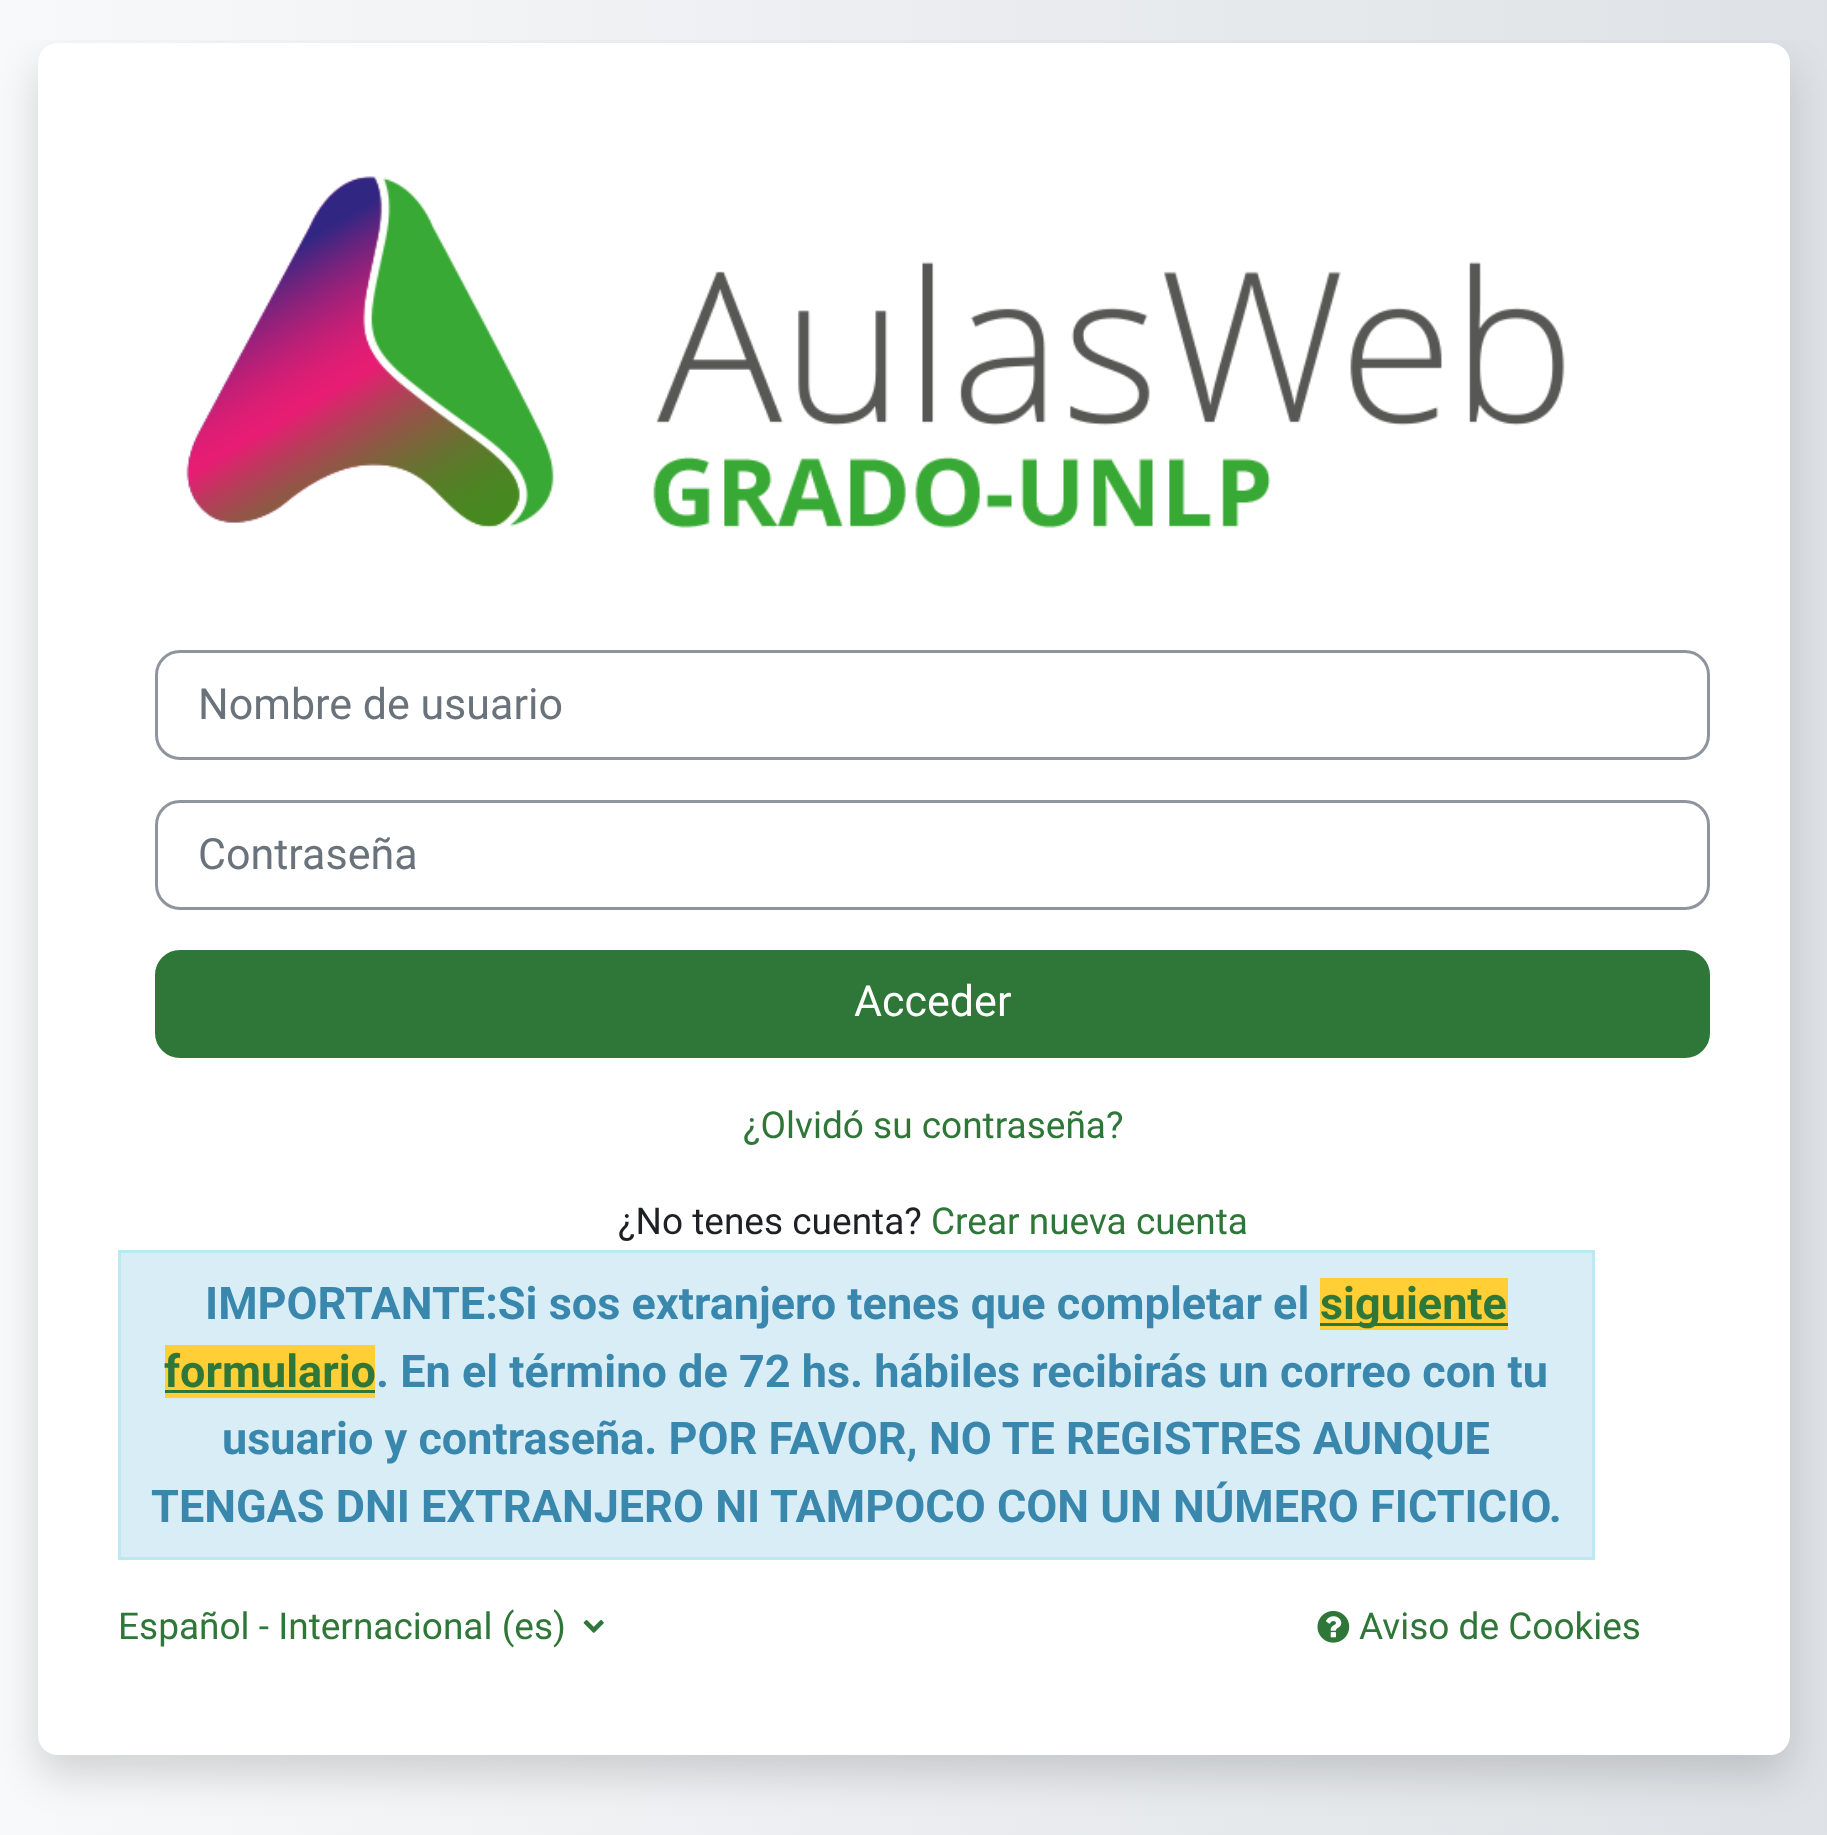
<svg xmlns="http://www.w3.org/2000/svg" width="1827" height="1835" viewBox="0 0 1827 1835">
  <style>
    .t1 { font: 43px Roboto; fill: #6a737b; }
    .t2 { font: 43px Roboto; fill: #fff; }
    .t3 { font: 37px Roboto; fill: #2f7738; }
    .t4 { font: 37px Roboto; fill: #1d2125; }
    .t5 { font: bold 45px Roboto; fill: #3a87ad; }
    .t6 { font: bold 45px Roboto; fill: #2f7738; }
  </style>
  <defs>
    <linearGradient id="g1" gradientUnits="userSpaceOnUse" x1="0" y1="918" x2="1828" y2="918"><stop offset="0" stop-color="#f8f9fa"/><stop offset="1" stop-color="#dee2e6"/></linearGradient>
    <clipPath id="clip1"><rect x="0" y="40" width="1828" height="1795"/></clipPath>
  </defs>
  <rect width="100%" height="100%" fill="#fff"/>
  <rect x="0" y="0" width="1827" height="1835" fill="url(#g1)"/>
  <g clip-path="url(#clip1)">
    <rect x="38" y="63" width="1752" height="1712" rx="20" fill="#00000026" filter="blur(20px)"/>
  </g>
  <rect x="38" y="43" width="1752" height="1712" rx="20" fill="#fff"/>
  <image x="186" y="176" width="1379" height="352" href="images/1.png"/>
  <rect x="156.5" y="651.5" width="1552" height="107" rx="23.5" fill="none" stroke="#8f959e" stroke-width="3"/>
  <text x="198" y="719" class="t1">Nombre de usuario</text>
  <rect x="156.5" y="801.5" width="1552" height="107" rx="23.5" fill="none" stroke="#8f959e" stroke-width="3"/>
  <text x="198" y="869" class="t1">Contraseña</text>
  <rect x="156.5" y="951.5" width="1552" height="105" rx="23.5" fill="#2f7738" stroke="#2f7738" stroke-width="3"/>
  <text x="854" y="1016" class="t2">Acceder</text>
  <text x="743" y="1138" class="t3">¿Olvidó su contraseña?</text>
  <text x="618" y="1234" class="t4">¿No tenes cuenta?</text>
  <text x="931" y="1234" class="t3">Crear nueva cuenta</text>
  <rect x="119.5" y="1251.5" width="1474" height="307" fill="#d9edf7" stroke="#bce8f1" stroke-width="3"/>
  <text x="205" y="1319" class="t5">IMPORTANTE:Si sos extranjero tenes que completar el</text>
  <rect x="1320" y="1278" width="188" height="52" fill="#ffcf35"/>
  <rect x="1320" y="1323" width="188" height="3" fill="#2f7738"/>
  <text x="1320" y="1319" class="t6">siguiente</text>
  <rect x="165" y="1345" width="210" height="53" fill="#ffcf35"/>
  <text x="164" y="1387" class="t6">formulario</text>
  <rect x="165" y="1390" width="210" height="3" fill="#2f7738"/>
  <text x="376" y="1387" class="t5">. En el término de 72 hs. hábiles recibirás un correo con tu</text>
  <text x="222" y="1454" class="t5">usuario y contraseña. POR FAVOR, NO TE REGISTRES AUNQUE</text>
  <text x="151" y="1522" class="t5">TENGAS DNI EXTRANJERO NI TAMPOCO CON UN NÚMERO FICTICIO.</text>
  <text x="118" y="1639" class="t3">Español - Internacional (es)</text>
  <image x="583" y="1620" width="21" height="13" href="images/2.png"/>
  <image x="1317" y="1610" width="33" height="33" href="images/3.png"/>
  <text x="1359" y="1639" class="t3">Aviso de Cookies</text>
</svg>
